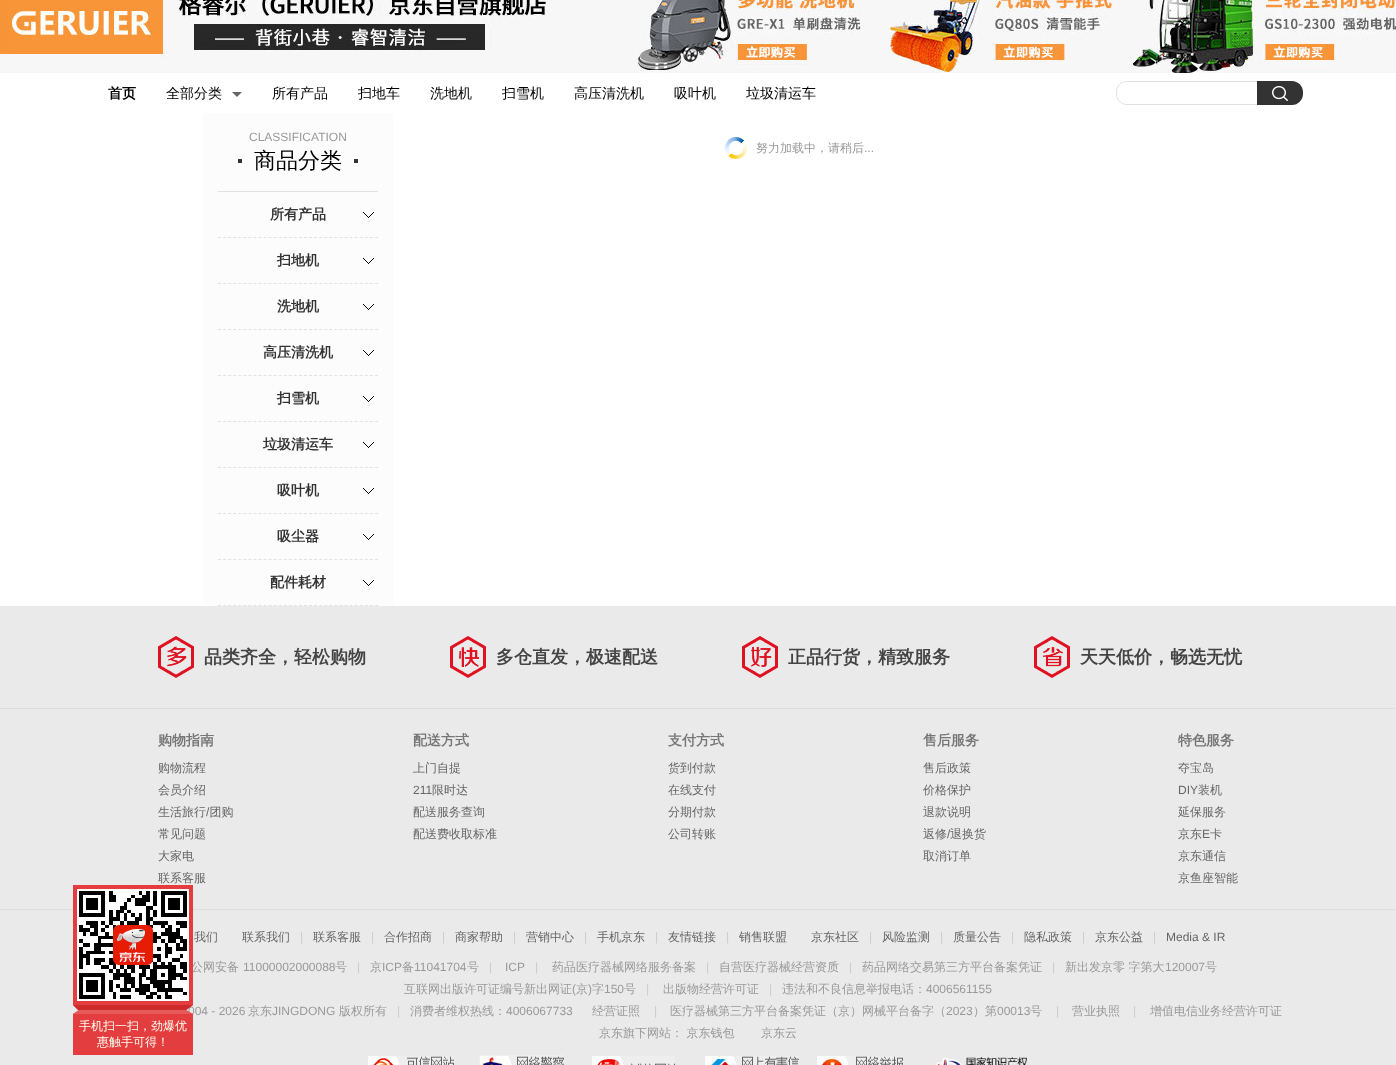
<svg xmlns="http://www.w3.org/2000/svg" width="1396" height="1065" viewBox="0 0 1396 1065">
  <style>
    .t1 { font: bold 14px WenQuanYi Zen Hei; fill: #000; }
    .t2 { font: 500 14px WenQuanYi Zen Hei; fill: #000; }
    .t3 { font: 12px Liberation Sans; fill: #999; }
    .t4 { font: 500 22px WenQuanYi Zen Hei; fill: #000; }
    .t5 { font: bold 14px WenQuanYi Zen Hei; fill: #333; }
    .t6 { font: 500 12px WenQuanYi Zen Hei; fill: #999; }
    .t7 { font: 500 12px WenQuanYi Zen Hei; fill: #fffbee; }
    .t8 { font: bold 18px WenQuanYi Zen Hei; fill: #444; }
    .t9 { font: bold 14px WenQuanYi Zen Hei; fill: #777; }
    .t10 { font: 500 12px WenQuanYi Zen Hei; fill: #666; }
    .t11 { font: 12px Liberation Sans; fill: #666; }
    .t12 { font: 12px Liberation Sans; fill: #ccc; }
  </style>
  <rect width="100%" height="100%" fill="#fff"/>
  <image x="0" y="0" width="1396" height="73" href="images/1.png"/>
  <text x="108" y="98" class="t1">首页</text>
  <text x="166" y="98" class="t2">全部分类</text>
  <path d="M232 92H242L237 97Z" fill="#666"/>
  <text x="272" y="98" class="t2">所有产品</text>
  <text x="358" y="98" class="t2">扫地车</text>
  <text x="430" y="98" class="t2">洗地机</text>
  <text x="502" y="98" class="t2">扫雪机</text>
  <text x="574" y="98" class="t2">高压清洗机</text>
  <text x="674" y="98" class="t2">吸叶机</text>
  <text x="746" y="98" class="t2">垃圾清运车</text>
  <path d="M1127 81.5H1257.5V104.5H1127C1121 104.5 1116.5 100 1116.5 94V92C1116.5 86 1121 81.5 1127 81.5Z" fill="none" stroke="#e1e1e1"/>
  <path d="M1257 81H1292C1298 81 1303 86 1303 92V94C1303 100 1298 105 1292 105H1257Z" fill="#333"/>
  <image x="1272" y="86" width="16" height="15" href="images/2.png"/>
  <rect x="203" y="113" width="190" height="493" fill="#fcfcfc"/>
  <text x="249" y="141" class="t3">CLASSIFICATION</text>
  <rect x="218" y="191" width="160" height="1" fill="#e1e1e1"/>
  <rect x="238" y="159" width="4" height="4" fill="#333"/>
  <text x="254" y="168" class="t4">商品分类</text>
  <rect x="354" y="159" width="4" height="4" fill="#333"/>
  <path d="M218 237.5H378" fill="none" stroke="#e1e1e1" stroke-dasharray="3 2.06"/>
  <text x="270" y="219" class="t5">所有产品</text>
  <image x="363" y="212" width="11" height="6" href="images/3.png"/>
  <path d="M218 283.5H378" fill="none" stroke="#e1e1e1" stroke-dasharray="3 2.06"/>
  <text x="277" y="265" class="t5">扫地机</text>
  <image x="363" y="258" width="11" height="6" href="images/3.png"/>
  <path d="M218 329.5H378" fill="none" stroke="#e1e1e1" stroke-dasharray="3 2.06"/>
  <text x="277" y="311" class="t5">洗地机</text>
  <image x="363" y="304" width="11" height="6" href="images/3.png"/>
  <path d="M218 375.5H378" fill="none" stroke="#e1e1e1" stroke-dasharray="3 2.06"/>
  <text x="263" y="357" class="t5">高压清洗机</text>
  <image x="363" y="350" width="11" height="6" href="images/3.png"/>
  <path d="M218 421.5H378" fill="none" stroke="#e1e1e1" stroke-dasharray="3 2.06"/>
  <text x="277" y="403" class="t5">扫雪机</text>
  <image x="363" y="396" width="11" height="6" href="images/3.png"/>
  <path d="M218 467.5H378" fill="none" stroke="#e1e1e1" stroke-dasharray="3 2.06"/>
  <text x="263" y="449" class="t5">垃圾清运车</text>
  <image x="363" y="442" width="11" height="6" href="images/3.png"/>
  <path d="M218 513.5H378" fill="none" stroke="#e1e1e1" stroke-dasharray="3 2.06"/>
  <text x="277" y="495" class="t5">吸叶机</text>
  <image x="363" y="488" width="11" height="6" href="images/3.png"/>
  <path d="M218 559.5H378" fill="none" stroke="#e1e1e1" stroke-dasharray="3 2.06"/>
  <text x="277" y="541" class="t5">吸尘器</text>
  <image x="363" y="534" width="11" height="6" href="images/3.png"/>
  <path d="M218 605.5H378" fill="none" stroke="#e1e1e1" stroke-dasharray="3 2.06"/>
  <text x="270" y="587" class="t5">配件耗材</text>
  <image x="363" y="580" width="11" height="6" href="images/3.png"/>
  <image x="725" y="137" width="22" height="22" href="images/4.png"/>
  <text x="756" y="152" class="t6">努力加载中，请稍后</text>
  <text x="864" y="152" class="t3">...</text>
  <rect x="0" y="606" width="1396" height="459" fill="#eaeaea"/>
  <rect x="0" y="909" width="1396" height="1" fill="#dedede"/>
  <text x="191" y="971" class="t6">公网安备</text>
  <rect x="73" y="885" width="120" height="120" fill="#e43d3f"/>
  <image x="77" y="889" width="112" height="112" href="images/5.png"/>
  <text x="188" y="1015" class="t3">004 - 2026</text>
  <image x="73" y="1005" width="120" height="9" href="images/6.png"/>
  <rect x="73" y="1014" width="120" height="41" fill="#e43d3f"/>
  <text x="79" y="1030" class="t7">手机扫一扫，劲爆优</text>
  <text x="97" y="1046" class="t7">惠触手可得！</text>
  <image x="158" y="636" width="36" height="42" href="images/7.png"/>
  <text x="204" y="663" class="t8">品类齐全，轻松购物</text>
  <image x="450" y="636" width="36" height="42" href="images/8.png"/>
  <text x="496" y="663" class="t8">多仓直发，极速配送</text>
  <image x="742" y="636" width="36" height="42" href="images/9.png"/>
  <text x="788" y="663" class="t8">正品行货，精致服务</text>
  <image x="1034" y="636" width="36" height="42" href="images/10.png"/>
  <text x="1080" y="663" class="t8">天天低价，畅选无忧</text>
  <rect x="0" y="708" width="1396" height="1" fill="#dedede"/>
  <text x="158" y="745" class="t9">购物指南</text>
  <text x="158" y="772" class="t10">购物流程</text>
  <text x="158" y="794" class="t10">会员介绍</text>
  <text x="158" y="816" class="t10">生活旅行 团购</text>
  <text x="206" y="816" class="t11">/</text>
  <text x="158" y="838" class="t10">常见问题</text>
  <text x="158" y="860" class="t10">大家电</text>
  <text x="158" y="882" class="t10">联系客服</text>
  <text x="413" y="745" class="t9">配送方式</text>
  <text x="413" y="772" class="t10">上门自提</text>
  <text x="413" y="794" class="t11">211</text>
  <text x="432" y="794" class="t10">限时达</text>
  <text x="413" y="816" class="t10">配送服务查询</text>
  <text x="413" y="838" class="t10">配送费收取标准</text>
  <text x="668" y="745" class="t9">支付方式</text>
  <text x="668" y="772" class="t10">货到付款</text>
  <text x="668" y="794" class="t10">在线支付</text>
  <text x="668" y="816" class="t10">分期付款</text>
  <text x="668" y="838" class="t10">公司转账</text>
  <text x="923" y="745" class="t9">售后服务</text>
  <text x="923" y="772" class="t10">售后政策</text>
  <text x="923" y="794" class="t10">价格保护</text>
  <text x="923" y="816" class="t10">退款说明</text>
  <text x="923" y="838" class="t10">返修</text>
  <text x="947" y="838" class="t11">/</text>
  <text x="950" y="838" class="t10">退换货</text>
  <text x="923" y="860" class="t10">取消订单</text>
  <text x="1178" y="745" class="t9">特色服务</text>
  <text x="1178" y="772" class="t10">夺宝岛</text>
  <text x="1178" y="794" class="t11">DIY</text>
  <text x="1198" y="794" class="t10">装机</text>
  <text x="1178" y="816" class="t10">延保服务</text>
  <text x="1178" y="838" class="t10">京东</text>
  <text x="1202" y="838" class="t11">E</text>
  <text x="1210" y="838" class="t10">卡</text>
  <text x="1178" y="860" class="t10">京东通信</text>
  <text x="1178" y="882" class="t10">京鱼座智能</text>
  <text x="194" y="941" class="t10">我们</text>
  <text x="242" y="941" class="t10">联系我们</text>
  <text x="300" y="941" class="t12">|</text>
  <text x="313" y="941" class="t10">联系客服</text>
  <text x="371" y="941" class="t12">|</text>
  <text x="384" y="941" class="t10">合作招商</text>
  <text x="442" y="941" class="t12">|</text>
  <text x="455" y="941" class="t10">商家帮助</text>
  <text x="513" y="941" class="t12">|</text>
  <text x="526" y="941" class="t10">营销中心</text>
  <text x="584" y="941" class="t12">|</text>
  <text x="597" y="941" class="t10">手机京东</text>
  <text x="655" y="941" class="t12">|</text>
  <text x="668" y="941" class="t10">友情链接</text>
  <text x="726" y="941" class="t12">|</text>
  <text x="739" y="941" class="t10">销售联盟</text>
  <text x="811" y="941" class="t10">京东社区</text>
  <text x="869" y="941" class="t12">|</text>
  <text x="882" y="941" class="t10">风险监测</text>
  <text x="940" y="941" class="t12">|</text>
  <text x="953" y="941" class="t10">质量公告</text>
  <text x="1011" y="941" class="t12">|</text>
  <text x="1024" y="941" class="t10">隐私政策</text>
  <text x="1082" y="941" class="t12">|</text>
  <text x="1095" y="941" class="t10">京东公益</text>
  <text x="1153" y="941" class="t12">|</text>
  <text x="1166" y="941" class="t11">Media &amp; IR</text>
  <text x="243" y="971" class="t3">11000002000088</text>
  <text x="335" y="971" class="t6">号</text>
  <text x="357" y="971" class="t12">|</text>
  <text x="370" y="971" class="t6">京</text>
  <text x="382" y="971" class="t3">ICP</text>
  <text x="402" y="971" class="t6">备</text>
  <text x="414" y="971" class="t3">11041704</text>
  <text x="467" y="971" class="t6">号</text>
  <text x="489" y="971" class="t12">|</text>
  <text x="505" y="971" class="t3">ICP</text>
  <text x="535" y="971" class="t12">|</text>
  <text x="552" y="971" class="t6">药品医疗器械网络服务备案</text>
  <text x="706" y="971" class="t12">|</text>
  <text x="719" y="971" class="t6">自营医疗器械经营资质</text>
  <text x="849" y="971" class="t12">|</text>
  <text x="862" y="971" class="t6">药品网络交易第三方平台备案凭证</text>
  <text x="1052" y="971" class="t12">|</text>
  <text x="1065" y="971" class="t6">新出发京零 字第大</text>
  <text x="1165" y="971" class="t3">120007</text>
  <text x="1205" y="971" class="t6">号</text>
  <text x="404" y="993" class="t6">互联网出版许可证编号新出网证</text>
  <text x="572" y="993" class="t3">(</text>
  <text x="576" y="993" class="t6">京</text>
  <text x="588" y="993" class="t3">)</text>
  <text x="592" y="993" class="t6">字</text>
  <text x="604" y="993" class="t3">150</text>
  <text x="624" y="993" class="t6">号</text>
  <text x="646" y="993" class="t12">|</text>
  <text x="663" y="993" class="t6">出版物经营许可证</text>
  <text x="769" y="993" class="t12">|</text>
  <text x="782" y="993" class="t6">违法和不良信息举报电话：</text>
  <text x="926" y="993" class="t3">4006561155</text>
  <text x="248" y="1015" class="t6">京东</text>
  <text x="272" y="1015" class="t3">JINGDONG</text>
  <text x="339" y="1015" class="t6">版权所有</text>
  <text x="397" y="1015" class="t12">|</text>
  <text x="410" y="1015" class="t6">消费者维权热线：</text>
  <text x="506" y="1015" class="t3">4006067733</text>
  <text x="592" y="1015" class="t6">经营证照</text>
  <text x="654" y="1015" class="t12">|</text>
  <text x="670" y="1015" class="t6">医疗器械第三方平台备案凭证（京）网械平台备字（</text>
  <text x="946" y="1015" class="t3">2023</text>
  <text x="973" y="1015" class="t6">）第</text>
  <text x="997" y="1015" class="t3">00013</text>
  <text x="1030" y="1015" class="t6">号</text>
  <text x="1056" y="1015" class="t12">|</text>
  <text x="1072" y="1015" class="t6">营业执照</text>
  <text x="1133" y="1015" class="t12">|</text>
  <text x="1150" y="1015" class="t6">增值电信业务经营许可证</text>
  <text x="599" y="1037" class="t6">京东旗下网站： 京东钱包</text>
  <text x="761" y="1037" class="t6">京东云</text>
  <image x="368" y="1056" width="86" height="9" href="images/11.png"/>
  <image x="479" y="1055" width="85" height="10" href="images/12.png"/>
  <image x="592" y="1056" width="83" height="9" href="images/13.png"/>
  <image x="705" y="1056" width="94" height="9" href="images/14.png"/>
  <image x="817" y="1056" width="86" height="9" href="images/15.png"/>
  <image x="936" y="1057" width="91" height="8" href="images/16.png"/>
</svg>
